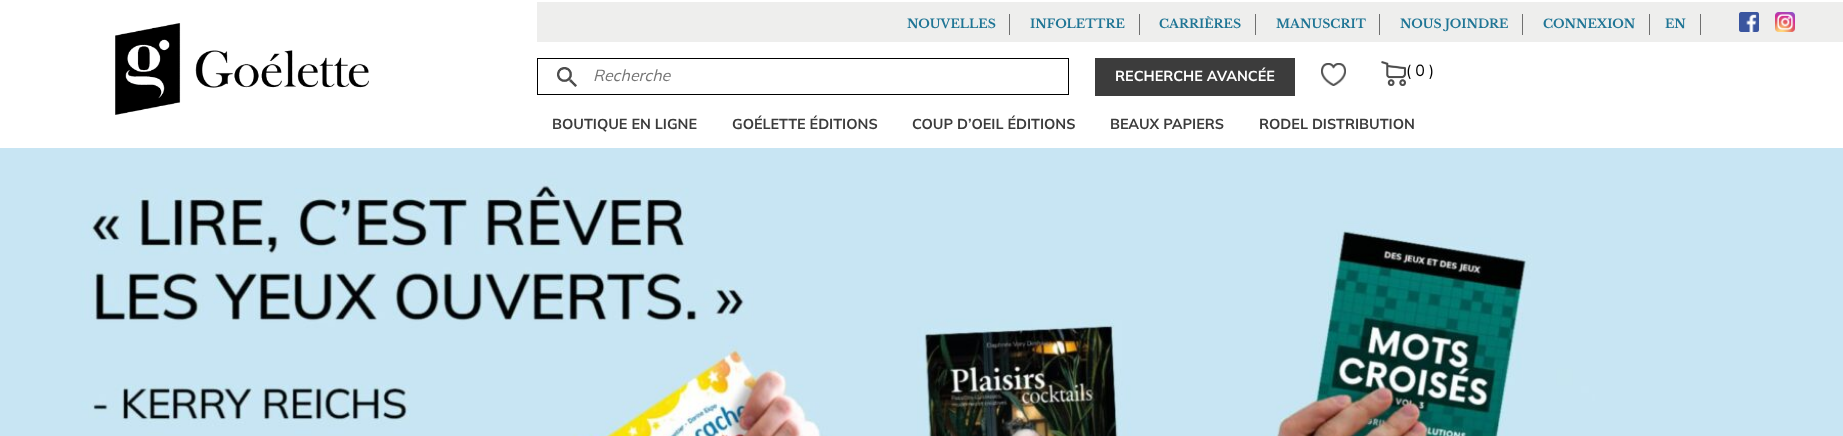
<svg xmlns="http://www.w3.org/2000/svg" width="1843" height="436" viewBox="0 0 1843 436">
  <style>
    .t1 { font: bold 12.25px Libre Baskerville; fill: #1f7595; }
    .t2 { font: italic 16px Mulish; fill: #757575; }
    .t3 { font: bold 14.4px Mulish; fill: #fff; }
    .t4 { font: 16px Mulish; fill: #000; }
    .t5 { font: bold 14.4px Mulish; fill: #3c3c3c; }
  </style>
  <rect width="100%" height="100%" fill="#fff"/>
  <image x="115" y="23" width="254" height="92" href="images/1.png"/>
  <rect x="537" y="2" width="1306" height="40" fill="#eeeeed"/>
  <text x="907" y="28" class="t1">NOUVELLES</text>
  <rect x="1009" y="14" width="1" height="21" fill="#707070"/>
  <text x="1030" y="28" class="t1">INFOLETTRE</text>
  <rect x="1139" y="14" width="1" height="21" fill="#707070"/>
  <text x="1159" y="28" class="t1">CARRIÈRES</text>
  <rect x="1255" y="14" width="1" height="21" fill="#707070"/>
  <text x="1276" y="28" class="t1">MANUSCRIT</text>
  <rect x="1379" y="14" width="1" height="21" fill="#707070"/>
  <text x="1400" y="28" class="t1">NOUS JOINDRE</text>
  <rect x="1522" y="14" width="1" height="21" fill="#707070"/>
  <text x="1543" y="28" class="t1">CONNEXION</text>
  <rect x="1649" y="14" width="1" height="21" fill="#707070"/>
  <text x="1665" y="28" class="t1">EN</text>
  <rect x="1700" y="14" width="1" height="21" fill="#707070"/>
  <image x="1739" y="12" width="20" height="20" href="images/2.png"/>
  <image x="1775" y="12" width="20" height="20" href="images/3.png"/>
  <rect x="537.5" y="58.5" width="531" height="36" fill="none" stroke="#000"/>
  <image x="557" y="67" width="20" height="20" href="images/4.png"/>
  <text x="593" y="81" class="t2">Recherche</text>
  <rect x="1095" y="58" width="200" height="38" fill="#3c3c3c"/>
  <text x="1115" y="81" class="t3">RECHERCHE AVANCÉE</text>
  <image x="1321" y="63" width="25" height="23" href="images/5.png"/>
  <image x="1381" y="61" width="25" height="25" href="images/6.png"/>
  <text x="1406" y="76" class="t4">( 0 )</text>
  <text x="552" y="129" class="t5">BOUTIQUE EN LIGNE</text>
  <text x="732" y="129" class="t5">GOÉLETTE ÉDITIONS</text>
  <text x="912" y="129" class="t5">COUP D’OEIL ÉDITIONS</text>
  <text x="1110" y="129" class="t5">BEAUX PAPIERS</text>
  <text x="1259" y="129" class="t5">RODEL DISTRIBUTION</text>
  <image x="0" y="148" width="1843" height="288" href="images/7.png"/>
</svg>
